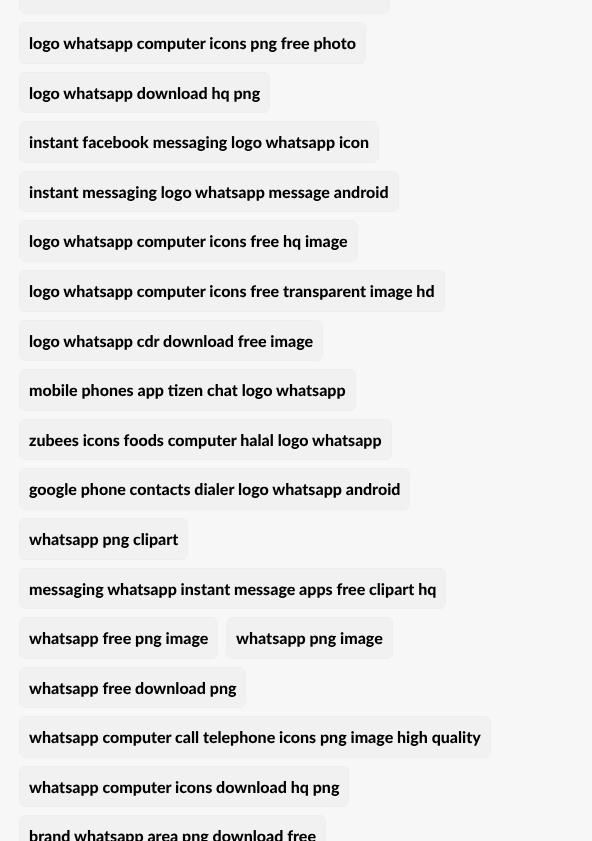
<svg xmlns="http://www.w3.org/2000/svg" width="592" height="841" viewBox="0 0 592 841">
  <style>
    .t1 { font: 900 16px Lato; fill: #000; }
  </style>
  <rect width="100%" height="100%" fill="#f7f7f7"/>
  <rect x="19.5" y="-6.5" width="370" height="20" rx="5.5" fill="none" stroke="#eee"/>
  <rect x="20" y="-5" width="369" height="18" rx="5" fill="#f1f1f1"/>
  <rect x="19.5" y="22.5" width="346" height="41" rx="5.5" fill="none" stroke="#eee"/>
  <rect x="20" y="23" width="345" height="40" rx="5" fill="#f1f1f1"/>
  <text x="29" y="49" class="t1">logo whatsapp computer icons png free photo</text>
  <rect x="19.5" y="72.5" width="250" height="40" rx="5.5" fill="none" stroke="#eee"/>
  <rect x="20" y="73" width="249" height="39" rx="5" fill="#f1f1f1"/>
  <text x="29" y="99" class="t1">logo whatsapp download hq png</text>
  <rect x="19.5" y="121.5" width="359" height="41" rx="5.5" fill="none" stroke="#eee"/>
  <rect x="20" y="122" width="358" height="40" rx="5" fill="#f1f1f1"/>
  <text x="29" y="148" class="t1">instant facebook messaging logo whatsapp icon</text>
  <rect x="19.5" y="171.5" width="379" height="40" rx="5.5" fill="none" stroke="#eee"/>
  <rect x="20" y="172" width="378" height="39" rx="5" fill="#f1f1f1"/>
  <text x="29" y="198" class="t1">instant messaging logo whatsapp message android</text>
  <rect x="19.5" y="220.5" width="338" height="41" rx="5.5" fill="none" stroke="#eee"/>
  <rect x="20" y="221" width="337" height="40" rx="5" fill="#f1f1f1"/>
  <text x="29" y="247" class="t1">logo whatsapp computer icons free hq image</text>
  <rect x="19.5" y="270.5" width="425" height="41" rx="5.5" fill="none" stroke="#eee"/>
  <rect x="20" y="271" width="424" height="40" rx="5" fill="#f1f1f1"/>
  <text x="29" y="297" class="t1">logo whatsapp computer icons free transparent image hd</text>
  <rect x="19.5" y="320.5" width="303" height="40" rx="5.5" fill="none" stroke="#eee"/>
  <rect x="20" y="321" width="302" height="39" rx="5" fill="#f1f1f1"/>
  <text x="29" y="347" class="t1">logo whatsapp cdr download free image</text>
  <rect x="19.5" y="369.5" width="336" height="41" rx="5.5" fill="none" stroke="#eee"/>
  <rect x="20" y="370" width="335" height="40" rx="5" fill="#f1f1f1"/>
  <text x="29" y="396" class="t1">mobile phones app tizen chat logo whatsapp</text>
  <rect x="19.5" y="419.5" width="372" height="40" rx="5.5" fill="none" stroke="#eee"/>
  <rect x="20" y="420" width="371" height="39" rx="5" fill="#f1f1f1"/>
  <text x="29" y="446" class="t1">zubees icons foods computer halal logo whatsapp</text>
  <rect x="19.5" y="468.5" width="390" height="41" rx="5.5" fill="none" stroke="#eee"/>
  <rect x="20" y="469" width="389" height="40" rx="5" fill="#f1f1f1"/>
  <text x="29" y="495" class="t1">google phone contacts dialer logo whatsapp android</text>
  <rect x="19.5" y="518.5" width="168" height="41" rx="5.5" fill="none" stroke="#eee"/>
  <rect x="20" y="519" width="167" height="40" rx="5" fill="#f1f1f1"/>
  <text x="29" y="545" class="t1">whatsapp png clipart</text>
  <rect x="19.5" y="568.5" width="426" height="40" rx="5.5" fill="none" stroke="#eee"/>
  <rect x="20" y="569" width="425" height="39" rx="5" fill="#f1f1f1"/>
  <text x="29" y="595" class="t1">messaging whatsapp instant message apps free clipart hq</text>
  <rect x="19.5" y="617.5" width="198" height="41" rx="5.5" fill="none" stroke="#eee"/>
  <rect x="20" y="618" width="197" height="40" rx="5" fill="#f1f1f1"/>
  <text x="29" y="644" class="t1">whatsapp free png image</text>
  <rect x="226.5" y="617.5" width="166" height="41" rx="5.5" fill="none" stroke="#eee"/>
  <rect x="227" y="618" width="165" height="40" rx="5" fill="#f1f1f1"/>
  <text x="236" y="644" class="t1">whatsapp png image</text>
  <rect x="19.5" y="667.5" width="226" height="40" rx="5.5" fill="none" stroke="#eee"/>
  <rect x="20" y="668" width="225" height="39" rx="5" fill="#f1f1f1"/>
  <text x="29" y="694" class="t1">whatsapp free download png</text>
  <rect x="19.5" y="716.5" width="471" height="41" rx="5.5" fill="none" stroke="#eee"/>
  <rect x="20" y="717" width="470" height="40" rx="5" fill="#f1f1f1"/>
  <text x="29" y="743" class="t1">whatsapp computer call telephone icons png image high quality</text>
  <rect x="19.5" y="766.5" width="329" height="40" rx="5.5" fill="none" stroke="#eee"/>
  <rect x="20" y="767" width="328" height="39" rx="5" fill="#f1f1f1"/>
  <text x="29" y="793" class="t1">whatsapp computer icons download hq png</text>
  <rect x="19.5" y="815.5" width="306" height="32" rx="5.5" fill="none" stroke="#eee"/>
  <rect x="20" y="816" width="305" height="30" rx="5" fill="#f1f1f1"/>
  <text x="29" y="842" class="t1">brand whatsapp area png download free</text>
</svg>
